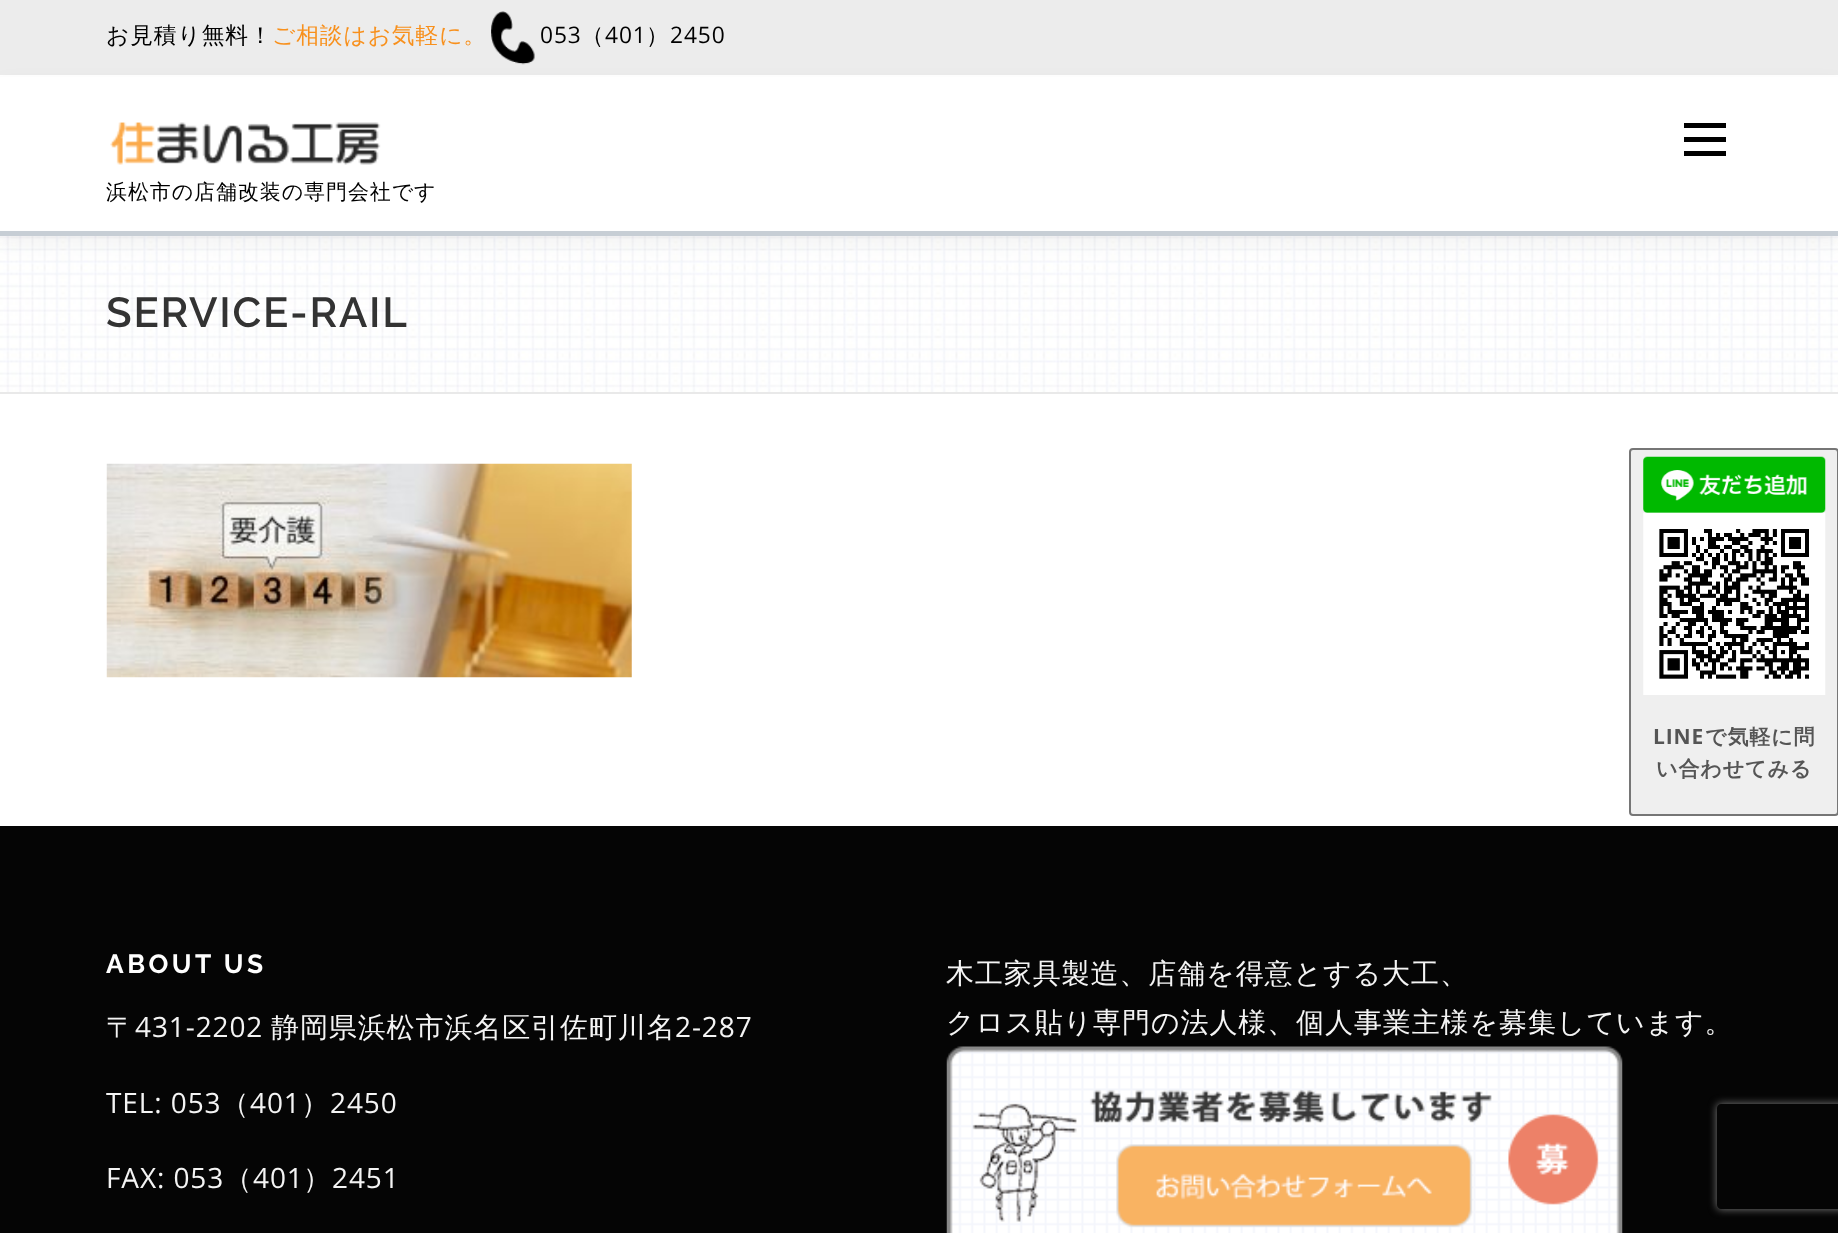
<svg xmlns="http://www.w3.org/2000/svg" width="1838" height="1233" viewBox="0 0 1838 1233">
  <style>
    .t1 { font: 500 22.75px WenQuanYi Zen Hei; letter-spacing: 0.9px; fill: #000; }
    .t2 { font: 500 22.75px WenQuanYi Zen Hei; letter-spacing: 0.9px; fill: #f8901c; }
    .t3 { font: 22.75px Open Sans; letter-spacing: 0.9px; fill: #000; }
    .t4 { font: 500 21px WenQuanYi Zen Hei; letter-spacing: 0.9px; fill: #000; }
    .t5 { font: 600 42px Raleway; letter-spacing: 1.75px; fill: #333; }
    .t6 { font: bold 21px Open Sans; letter-spacing: 0.9px; fill: #555; }
    .t7 { font: bold 21px WenQuanYi Zen Hei; letter-spacing: 0.9px; fill: #555; }
    .t8 { font: 500 28px WenQuanYi Zen Hei; letter-spacing: 0.9px; fill: #f4f4f4; }
    .t9 { font: bold 26.25px Raleway; letter-spacing: 3.5px; fill: #fff; }
    .t10 { font: 28px Open Sans; letter-spacing: 0.9px; fill: #f4f4f4; }
  </style>
  <defs>
    <clipPath id="clip1"><path d="M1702 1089H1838V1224H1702ZM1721 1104H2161C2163 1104 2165 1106 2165 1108V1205C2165 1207 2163 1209 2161 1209H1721C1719 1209 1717 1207 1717 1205V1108C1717 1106 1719 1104 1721 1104Z" clip-rule="evenodd"/></clipPath>
  </defs>
  <rect width="100%" height="100%" fill="#fff"/>
  <rect x="0" y="0" width="1838" height="75" fill="#ececec"/>
  <text x="106" y="43" class="t1">お見積り無料！</text>
  <text x="272" y="43" class="t2">ご相談はお気軽に。</text>
  <image x="491" y="11" width="44" height="54" href="images/1.png"/>
  <text x="540" y="43" class="t3">053</text>
  <text x="581" y="43" class="t1">（</text>
  <text x="605" y="43" class="t3">401</text>
  <text x="646" y="43" class="t1">）</text>
  <text x="670" y="43" class="t3">2450</text>
  <image x="0" y="236" width="1838" height="156" href="images/3.png"/>
  <rect x="0" y="84" width="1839" height="161" fill="#3232320f" filter="blur(9px)"/>
  <rect x="0" y="77" width="1838" height="154" fill="#fff"/>
  <rect x="0" y="231" width="1838" height="5" fill="#c7ced5"/>
  <rect x="1684" y="137" width="42" height="5" fill="#000"/>
  <rect x="1684" y="123" width="42" height="5" fill="#000"/>
  <rect x="1684" y="151" width="42" height="5" fill="#000"/>
  <image x="110" y="122" width="271" height="43" href="images/2.png"/>
  <text x="106" y="199" class="t4">浜松市の店舗改装の専門会社です</text>
  <rect x="0" y="392" width="1838" height="2" fill="#e9e9e9"/>
  <text x="106" y="327" class="t5">SERVICE-RAIL</text>
  <image x="106" y="463" width="526" height="215" href="images/4.png"/>
  <rect x="0" y="826" width="1838" height="407" fill="#050505"/>
  <rect x="1630" y="449" width="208" height="366" rx="3" fill="#efefef" stroke="#767676" stroke-width="2"/>
  <image x="1643" y="456" width="183" height="57" href="images/5.png"/>
  <image x="1643" y="512" width="183" height="183" href="images/6.png"/>
  <text x="1653" y="744" class="t6">LINE</text>
  <text x="1705" y="744" class="t7">で気軽に問</text>
  <text x="1656" y="776" class="t7">い合わせてみる</text>
  <text x="946" y="983" class="t8">木工家具製造、店舗を得意とする大工、</text>
  <text x="946" y="1032" class="t8">クロス貼り専門の法人様、個人事業主様を募集しています。</text>
  <image x="946" y="1046" width="677" height="187" href="images/7.png"/>
  <text x="106" y="973" class="t9">ABOUT US</text>
  <text x="106" y="1037" class="t8">〒</text>
  <text x="135" y="1037" class="t10">431-2202</text>
  <text x="271" y="1037" class="t8">静岡県浜松市浜名区引佐町川名</text>
  <text x="675" y="1037" class="t10">2-287</text>
  <text x="106" y="1113" class="t10">TEL: 053</text>
  <text x="221" y="1113" class="t8">（</text>
  <text x="250" y="1113" class="t10">401</text>
  <text x="301" y="1113" class="t8">）</text>
  <text x="330" y="1113" class="t10">2450</text>
  <text x="106" y="1188" class="t10">FAX: 053</text>
  <text x="224" y="1188" class="t8">（</text>
  <text x="253" y="1188" class="t10">401</text>
  <text x="303" y="1188" class="t8">）</text>
  <text x="332" y="1188" class="t10">2451</text>
  <g clip-path="url(#clip1)">
    <rect x="1717" y="1104" width="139" height="105" rx="4" fill="#808080" filter="blur(4.5px)"/>
  </g>
</svg>
